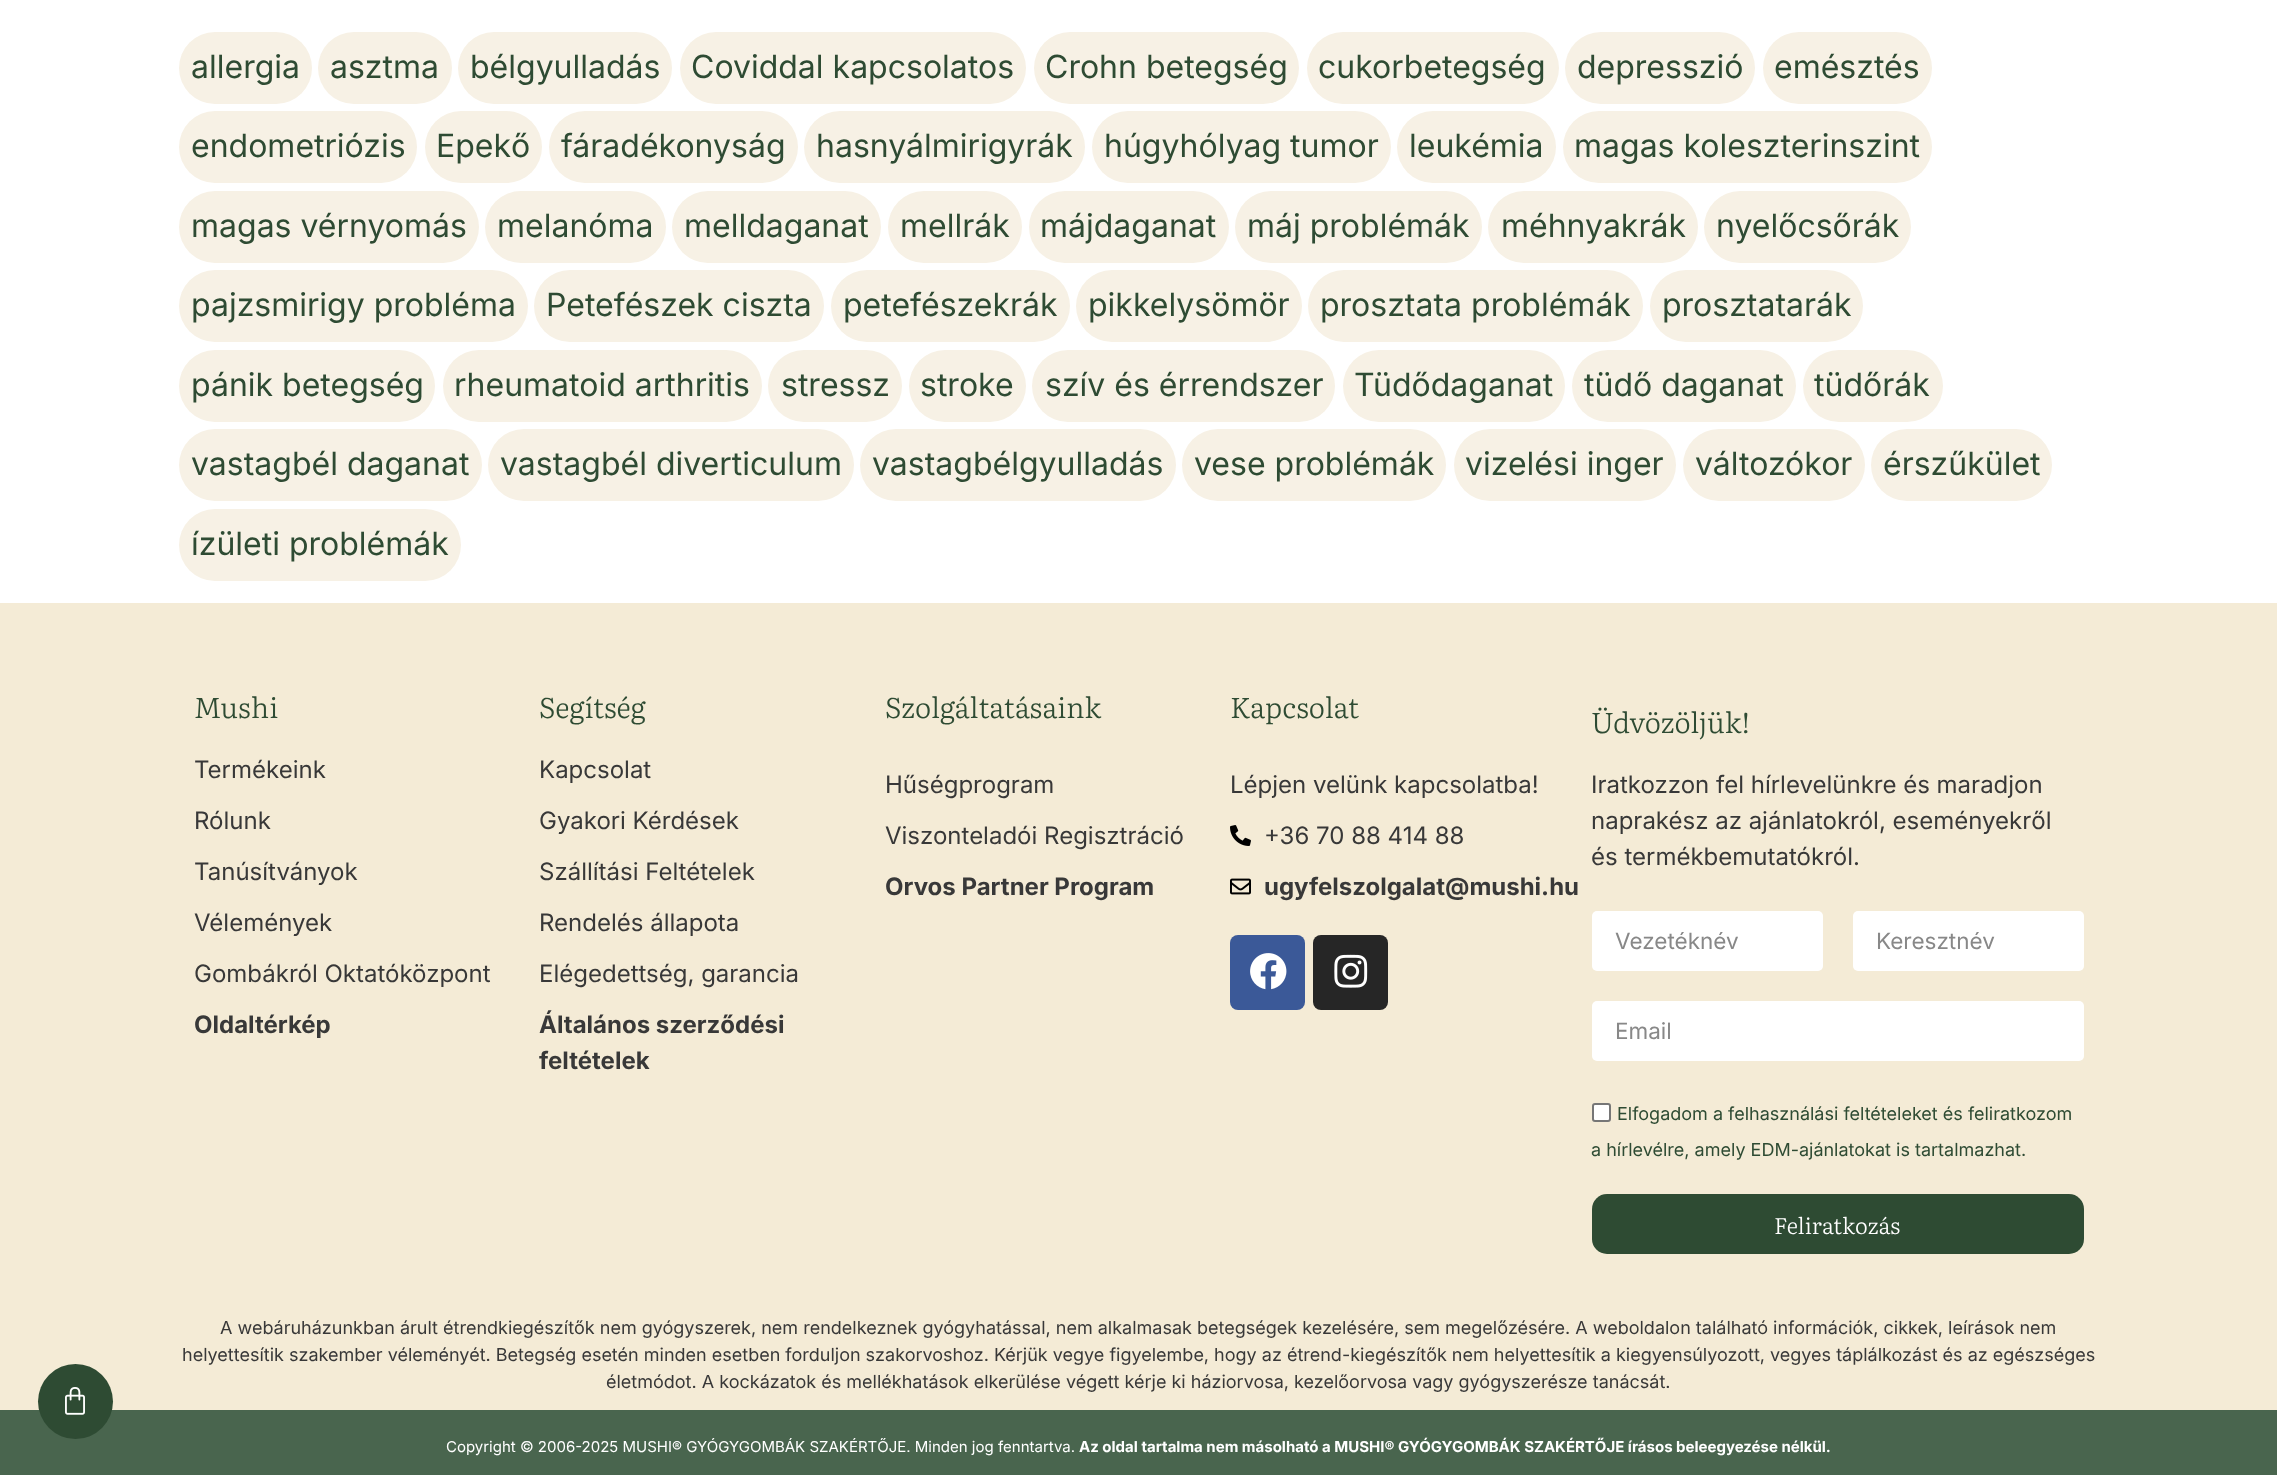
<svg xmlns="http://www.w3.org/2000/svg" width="2277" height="1475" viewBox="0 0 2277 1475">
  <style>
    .t1 { font: 32px Inter; fill: #2e4b33; }
    .t2 { font: 300 28.5px Literata; fill: #2e4b33; }
    .t3 { font: 24px Inter; fill: #383838; }
    .t4 { font: bold 24px Inter; fill: #383838; }
    .t5 { font: 22.5px Inter; fill: #888; }
    .t6 { font: 18px Inter; fill: #2e4b33; }
    .t7 { font: 300 22.5px Literata; fill: #fff; }
    .t8 { font: 18px Inter; fill: #383838; }
    .t9 { font: 15px Inter; fill: #fff; }
    .t10 { font: bold 15px Inter; fill: #fff; }
  </style>
  <rect width="100%" height="100%" fill="#fff"/>
  <rect x="179" y="32" width="133" height="72" rx="36" fill="#f7f1e5"/>
  <text x="191" y="78" class="t1">allergia</text>
  <rect x="318" y="32" width="134" height="72" rx="36" fill="#f7f1e5"/>
  <text x="330" y="78" class="t1">asztma</text>
  <rect x="458" y="32" width="214" height="72" rx="36" fill="#f7f1e5"/>
  <text x="470" y="78" class="t1">bélgyulladás</text>
  <rect x="680" y="32" width="346" height="72" rx="36" fill="#f7f1e5"/>
  <text x="691" y="78" class="t1">Coviddal kapcsolatos</text>
  <rect x="1034" y="32" width="265" height="72" rx="36" fill="#f7f1e5"/>
  <text x="1045" y="78" class="t1">Crohn betegség</text>
  <rect x="1307" y="32" width="252" height="72" rx="36" fill="#f7f1e5"/>
  <text x="1318" y="78" class="t1">cukorbetegség</text>
  <rect x="1565" y="32" width="190" height="72" rx="36" fill="#f7f1e5"/>
  <text x="1577" y="78" class="t1">depresszió</text>
  <rect x="1763" y="32" width="169" height="72" rx="36" fill="#f7f1e5"/>
  <text x="1774" y="78" class="t1">emésztés</text>
  <rect x="179" y="111" width="238" height="72" rx="36" fill="#f7f1e5"/>
  <text x="191" y="157" class="t1">endometriózis</text>
  <rect x="425" y="111" width="117" height="72" rx="36" fill="#f7f1e5"/>
  <text x="436" y="157" class="t1">Epekő</text>
  <rect x="549" y="111" width="249" height="72" rx="36" fill="#f7f1e5"/>
  <text x="561" y="157" class="t1">fáradékonyság</text>
  <rect x="804" y="111" width="281" height="72" rx="36" fill="#f7f1e5"/>
  <text x="816" y="157" class="t1">hasnyálmirigyrák</text>
  <rect x="1092" y="111" width="299" height="72" rx="36" fill="#f7f1e5"/>
  <text x="1104" y="157" class="t1">húgyhólyag tumor</text>
  <rect x="1397" y="111" width="159" height="72" rx="36" fill="#f7f1e5"/>
  <text x="1409" y="157" class="t1">leukémia</text>
  <rect x="1563" y="111" width="369" height="72" rx="36" fill="#f7f1e5"/>
  <text x="1574" y="157" class="t1">magas koleszterinszint</text>
  <rect x="179" y="191" width="300" height="72" rx="36" fill="#f7f1e5"/>
  <text x="191" y="237" class="t1">magas vérnyomás</text>
  <rect x="485" y="191" width="181" height="72" rx="36" fill="#f7f1e5"/>
  <text x="497" y="237" class="t1">melanóma</text>
  <rect x="672" y="191" width="209" height="72" rx="36" fill="#f7f1e5"/>
  <text x="684" y="237" class="t1">melldaganat</text>
  <rect x="888" y="191" width="134" height="72" rx="36" fill="#f7f1e5"/>
  <text x="900" y="237" class="t1">mellrák</text>
  <rect x="1029" y="191" width="200" height="72" rx="36" fill="#f7f1e5"/>
  <text x="1040" y="237" class="t1">májdaganat</text>
  <rect x="1235" y="191" width="247" height="72" rx="36" fill="#f7f1e5"/>
  <text x="1247" y="237" class="t1">máj problémák</text>
  <rect x="1488" y="191" width="210" height="72" rx="36" fill="#f7f1e5"/>
  <text x="1501" y="237" class="t1">méhnyakrák</text>
  <rect x="1704" y="191" width="207" height="72" rx="36" fill="#f7f1e5"/>
  <text x="1716" y="237" class="t1">nyelőcsőrák</text>
  <rect x="179" y="270" width="349" height="72" rx="36" fill="#f7f1e5"/>
  <text x="191" y="316" class="t1">pajzsmirigy probléma</text>
  <rect x="534" y="270" width="290" height="72" rx="36" fill="#f7f1e5"/>
  <text x="546" y="316" class="t1">Petefészek ciszta</text>
  <rect x="831" y="270" width="239" height="72" rx="36" fill="#f7f1e5"/>
  <text x="843" y="316" class="t1">petefészekrák</text>
  <rect x="1076" y="270" width="226" height="72" rx="36" fill="#f7f1e5"/>
  <text x="1088" y="316" class="t1">pikkelysömör</text>
  <rect x="1308" y="270" width="335" height="72" rx="36" fill="#f7f1e5"/>
  <text x="1320" y="316" class="t1">prosztata problémák</text>
  <rect x="1650" y="270" width="213" height="72" rx="36" fill="#f7f1e5"/>
  <text x="1662" y="316" class="t1">prosztatarák</text>
  <rect x="179" y="350" width="256" height="72" rx="36" fill="#f7f1e5"/>
  <text x="191" y="396" class="t1">pánik betegség</text>
  <rect x="443" y="350" width="319" height="72" rx="36" fill="#f7f1e5"/>
  <text x="454" y="396" class="t1">rheumatoid arthritis</text>
  <rect x="768" y="350" width="134" height="72" rx="36" fill="#f7f1e5"/>
  <text x="781" y="396" class="t1">stressz</text>
  <rect x="909" y="350" width="117" height="72" rx="36" fill="#f7f1e5"/>
  <text x="920" y="396" class="t1">stroke</text>
  <rect x="1032" y="350" width="303" height="72" rx="36" fill="#f7f1e5"/>
  <text x="1045" y="396" class="t1">szív és érrendszer</text>
  <rect x="1343" y="350" width="222" height="72" rx="36" fill="#f7f1e5"/>
  <text x="1354" y="396" class="t1">Tüdődaganat</text>
  <rect x="1572" y="350" width="224" height="72" rx="36" fill="#f7f1e5"/>
  <text x="1584" y="396" class="t1">tüdő daganat</text>
  <rect x="1803" y="350" width="140" height="72" rx="36" fill="#f7f1e5"/>
  <text x="1814" y="396" class="t1">tüdőrák</text>
  <rect x="179" y="429" width="303" height="72" rx="36" fill="#f7f1e5"/>
  <text x="191" y="475" class="t1">vastagbél daganat</text>
  <rect x="488" y="429" width="366" height="72" rx="36" fill="#f7f1e5"/>
  <text x="500" y="475" class="t1">vastagbél diverticulum</text>
  <rect x="860" y="429" width="316" height="72" rx="36" fill="#f7f1e5"/>
  <text x="872" y="475" class="t1">vastagbélgyulladás</text>
  <rect x="1182" y="429" width="264" height="72" rx="36" fill="#f7f1e5"/>
  <text x="1194" y="475" class="t1">vese problémák</text>
  <rect x="1454" y="429" width="222" height="72" rx="36" fill="#f7f1e5"/>
  <text x="1465" y="475" class="t1">vizelési inger</text>
  <rect x="1683" y="429" width="182" height="72" rx="36" fill="#f7f1e5"/>
  <text x="1695" y="475" class="t1">változókor</text>
  <rect x="1871" y="429" width="181" height="72" rx="36" fill="#f7f1e5"/>
  <text x="1883" y="475" class="t1">érszűkület</text>
  <rect x="179" y="509" width="282" height="72" rx="36" fill="#f7f1e5"/>
  <text x="191" y="555" class="t1">ízületi problémák</text>
  <rect x="0" y="603" width="2277" height="807" fill="#f4ebd6"/>
  <text x="194" y="718" class="t2">Mushi</text>
  <text x="194" y="778" class="t3">Termékeink</text>
  <text x="194" y="829" class="t3">Rólunk</text>
  <text x="194" y="880" class="t3">Tanúsítványok</text>
  <text x="194" y="931" class="t3">Vélemények</text>
  <text x="194" y="982" class="t3">Gombákról Oktatóközpont</text>
  <text x="194" y="1033" class="t4">Oldaltérkép</text>
  <text x="539" y="718" class="t2">Segítség</text>
  <text x="539" y="778" class="t3">Kapcsolat</text>
  <text x="539" y="829" class="t3">Gyakori Kérdések</text>
  <text x="539" y="880" class="t3">Szállítási Feltételek</text>
  <text x="539" y="931" class="t3">Rendelés állapota</text>
  <text x="539" y="982" class="t3">Elégedettség, garancia</text>
  <text x="539" y="1033" class="t4">Általános szerződési</text>
  <text x="539" y="1069" class="t4">feltételek</text>
  <text x="885" y="718" class="t2">Szolgáltatásaink</text>
  <text x="885" y="793" class="t3">Hűségprogram</text>
  <text x="885" y="844" class="t3">Viszonteladói Regisztráció</text>
  <text x="885" y="895" class="t4">Orvos Partner Program</text>
  <text x="1230" y="718" class="t2">Kapcsolat</text>
  <text x="1230" y="793" class="t3">Lépjen velünk kapcsolatba!</text>
  <image x="1230" y="825" width="21" height="21" href="images/1.png"/>
  <text x="1264" y="844" class="t3">+36 70 88 414 88</text>
  <image x="1230" y="878" width="21" height="17" href="images/2.png"/>
  <text x="1264" y="895" class="t4">ugyfelszolgalat@mushi.hu</text>
  <rect x="1230" y="935" width="75" height="75" rx="8" fill="#3b5998"/>
  <image x="1250" y="953" width="37" height="37" href="images/3.png"/>
  <rect x="1313" y="935" width="75" height="75" rx="8" fill="#262626"/>
  <image x="1334" y="954" width="34" height="34" href="images/4.png"/>
  <text x="1591" y="733" class="t2">Üdvözöljük!</text>
  <text x="1591" y="793" class="t3">Iratkozzon fel hírlevelünkre és maradjon</text>
  <text x="1591" y="829" class="t3">naprakész az ajánlatokról, eseményekről</text>
  <text x="1591" y="865" class="t3">és termékbemutatókról.</text>
  <rect x="1592" y="911" width="231" height="60" rx="5" fill="#fff"/>
  <text x="1615" y="949" class="t5">Vezetéknév</text>
  <rect x="1853" y="911" width="231" height="60" rx="5" fill="#fff"/>
  <text x="1876" y="949" class="t5">Keresztnév</text>
  <rect x="1592" y="1001" width="492" height="60" rx="5" fill="#fff"/>
  <text x="1615" y="1039" class="t5">Email</text>
  <rect x="1593" y="1104" width="17" height="17" rx="2" fill="#fff" stroke="#767676" stroke-width="2"/>
  <text x="1617" y="1120" class="t6">Elfogadom a felhasználási feltételeket és feliratkozom</text>
  <text x="1591" y="1156" class="t6">a hírlevélre, amely EDM-ajánlatokat is tartalmazhat.</text>
  <rect x="1592" y="1194" width="492" height="60" rx="15" fill="#2e4b33"/>
  <text x="1774" y="1234" class="t7">Feliratkozás</text>
  <rect x="0" y="1410" width="2277" height="65" fill="#49654e"/>
  <circle cx="75.5" cy="1401.5" r="37.5" fill="#2e4b33"/>
  <image x="65" y="1387" width="20" height="28" href="images/5.png"/>
  <text x="220" y="1334" class="t8">A webáruházunkban árult étrendkiegészítők nem gyógyszerek, nem rendelkeznek gyógyhatással, nem alkalmasak betegségek kezelésére, sem megelőzésére. A weboldalon található információk, cikkek, leírások nem</text>
  <text x="182" y="1361" class="t8">helyettesítik szakember véleményét. Betegség esetén minden esetben forduljon szakorvoshoz. Kérjük vegye figyelembe, hogy az étrend-kiegészítők nem helyettesítik a kiegyensúlyozott, vegyes táplálkozást és az egészséges</text>
  <text x="606" y="1388" class="t8">életmódot. A kockázatok és mellékhatások elkerülése végett kérje ki háziorvosa, kezelőorvosa vagy gyógyszerésze tanácsát.</text>
  <text x="446" y="1452" class="t9">Copyright © 2006-2025 MUSHI® GYÓGYGOMBÁK SZAKÉRTŐJE. Minden jog fenntartva.</text>
  <text x="1079" y="1452" class="t10">Az oldal tartalma nem másolható a MUSHI® GYÓGYGOMBÁK SZAKÉRTŐJE írásos beleegyezése nélkül.</text>
</svg>
